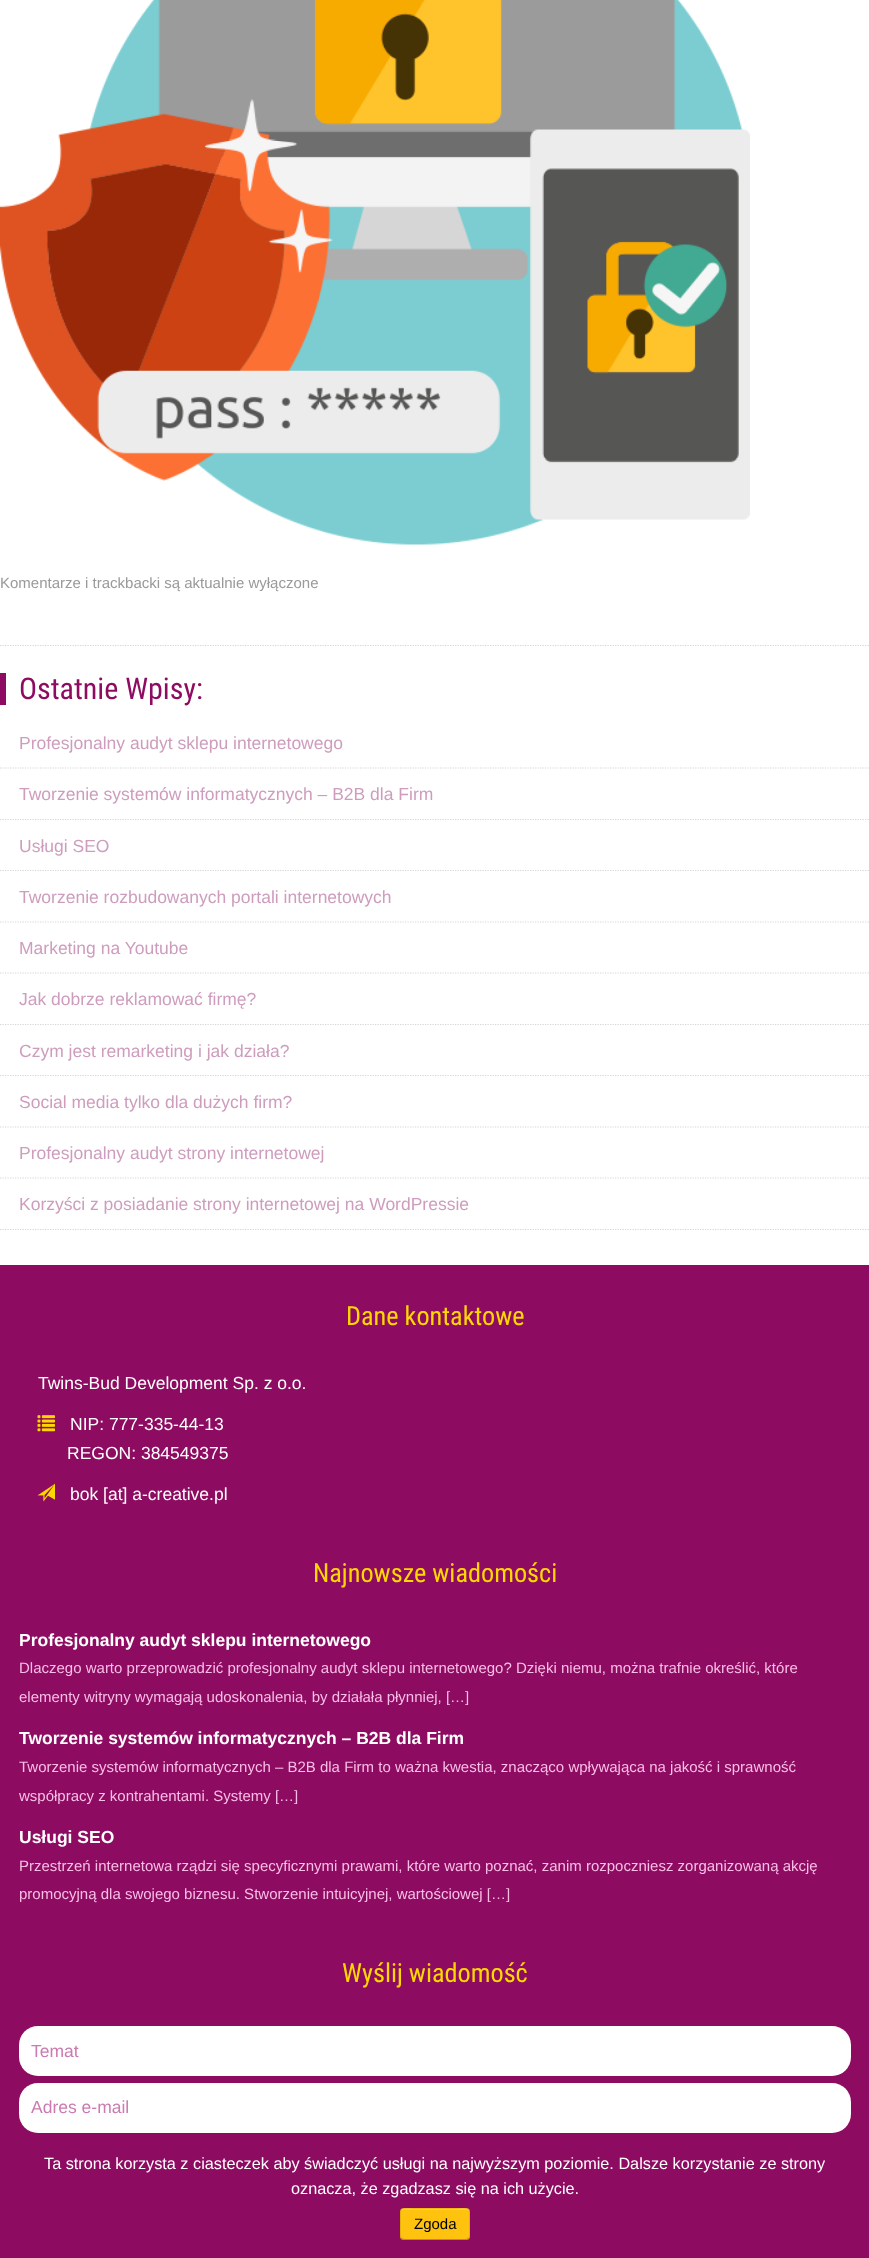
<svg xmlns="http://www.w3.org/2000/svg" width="869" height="2258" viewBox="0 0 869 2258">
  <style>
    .t1 { font: 15px Liberation Sans; fill: #999; }
    .t2 { font: 30px Roboto Condensed; fill: #8d0c62; }
    .t3 { font: 17.5px Liberation Sans; fill: #ce9dbd; }
    .t4 { font: 26.25px Roboto Condensed; fill: #ffd700; }
    .t5 { font: 17.5px Liberation Sans; fill: #fff; }
    .t6 { font: bold 17.5px Liberation Sans; fill: #fff; }
    .t7 { font: 15px Liberation Sans; fill: #fabee6; }
    .t8 { font: 17.5px Liberation Sans; fill: #cb7bb0; }
    .t9 { font: 16.25px Liberation Sans; fill: #fff; }
    .t10 { font: 15px Liberation Sans; fill: #000; }
  </style>
  <rect width="100%" height="100%" fill="#fff"/>
  <path d="M0 645.5H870" fill="none" stroke="#d6d6d6" stroke-width="1.2" stroke-dasharray="1.25 1.25"/>
  <image x="0" y="0" width="750" height="545" href="images/1.png"/>
  <text x="0" y="588" class="t1">Komentarze i trackbacki są aktualnie wyłączone</text>
  <rect x="0" y="673" width="6" height="32" fill="#8d0c62"/>
  <text x="19" y="699" class="t2">Ostatnie Wpisy:</text>
  <path d="M0 768H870" fill="none" stroke="#d6d6d6" stroke-width="1.2" stroke-dasharray="1.25 1.25"/>
  <text x="19" y="749" class="t3">Profesjonalny audyt sklepu internetowego</text>
  <path d="M0 819.5H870" fill="none" stroke="#d6d6d6" stroke-width="1.2" stroke-dasharray="1.25 1.25"/>
  <text x="19" y="800" class="t3">Tworzenie systemów informatycznych – B2B dla Firm</text>
  <path d="M0 870.5H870" fill="none" stroke="#d6d6d6" stroke-width="1.2" stroke-dasharray="1.25 1.25"/>
  <text x="19" y="852" class="t3">Usługi SEO</text>
  <path d="M0 922H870" fill="none" stroke="#d6d6d6" stroke-width="1.2" stroke-dasharray="1.25 1.25"/>
  <text x="19" y="903" class="t3">Tworzenie rozbudowanych portali internetowych</text>
  <path d="M0 973H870" fill="none" stroke="#d6d6d6" stroke-width="1.2" stroke-dasharray="1.25 1.25"/>
  <text x="19" y="954" class="t3">Marketing na Youtube</text>
  <path d="M0 1024.5H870" fill="none" stroke="#d6d6d6" stroke-width="1.2" stroke-dasharray="1.25 1.25"/>
  <text x="19" y="1005" class="t3">Jak dobrze reklamować firmę?</text>
  <path d="M0 1075.5H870" fill="none" stroke="#d6d6d6" stroke-width="1.2" stroke-dasharray="1.25 1.25"/>
  <text x="19" y="1057" class="t3">Czym jest remarketing i jak działa?</text>
  <path d="M0 1127H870" fill="none" stroke="#d6d6d6" stroke-width="1.2" stroke-dasharray="1.25 1.25"/>
  <text x="19" y="1108" class="t3">Social media tylko dla dużych firm?</text>
  <path d="M0 1178H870" fill="none" stroke="#d6d6d6" stroke-width="1.2" stroke-dasharray="1.25 1.25"/>
  <text x="19" y="1159" class="t3">Profesjonalny audyt strony internetowej</text>
  <path d="M0 1229.5H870" fill="none" stroke="#d6d6d6" stroke-width="1.2" stroke-dasharray="1.25 1.25"/>
  <text x="19" y="1210" class="t3">Korzyści z posiadanie strony internetowej na WordPressie</text>
  <rect x="0" y="1265" width="869" height="993" fill="#8d0c62"/>
  <text x="346" y="1325" class="t4">Dane kontaktowe</text>
  <text x="38" y="1389" class="t5">Twins-Bud Development Sp. z o.o.</text>
  <image x="37" y="1415" width="18" height="17" href="images/2.png"/>
  <text x="70" y="1430" class="t5">NIP: 777-335-44-13</text>
  <text x="67" y="1459" class="t5">REGON: 384549375</text>
  <image x="37" y="1483" width="18" height="19" href="images/3.png"/>
  <text x="70" y="1500" class="t5">bok [at] a-creative.pl</text>
  <text x="313" y="1582" class="t4">Najnowsze wiadomości</text>
  <text x="19" y="1646" class="t6">Profesjonalny audyt sklepu internetowego</text>
  <text x="19" y="1673" class="t7">Dlaczego warto przeprowadzić profesjonalny audyt sklepu internetowego? Dzięki niemu, można trafnie określić, które</text>
  <text x="19" y="1702" class="t7">elementy witryny wymagają udoskonalenia, by działała płynniej, […]</text>
  <text x="19" y="1744" class="t6">Tworzenie systemów informatycznych – B2B dla Firm</text>
  <text x="19" y="1772" class="t7">Tworzenie systemów informatycznych – B2B dla Firm to ważna kwestia, znacząco wpływająca na jakość i sprawność</text>
  <text x="19" y="1801" class="t7">współpracy z kontrahentami. Systemy […]</text>
  <text x="19" y="1843" class="t6">Usługi SEO</text>
  <text x="19" y="1871" class="t7">Przestrzeń internetowa rządzi się specyficznymi prawami, które warto poznać, zanim rozpoczniesz zorganizowaną akcję</text>
  <text x="19" y="1899" class="t7">promocyjną dla swojego biznesu. Stworzenie intuicyjnej, wartościowej […]</text>
  <text x="342" y="1982" class="t4">Wyślij wiadomość</text>
  <rect x="19" y="2026" width="832" height="50" rx="19" fill="#fff"/>
  <text x="31" y="2057" class="t8">Temat</text>
  <rect x="19" y="2083" width="832" height="50" rx="19" fill="#fff"/>
  <text x="31" y="2113" class="t8">Adres e-mail</text>
  <text x="44" y="2169" class="t9">Ta strona korzysta z ciasteczek aby świadczyć usługi na najwyższym poziomie. Dalsze korzystanie ze strony</text>
  <text x="291" y="2194" class="t9">oznacza, że zgadzasz się na ich użycie.</text>
  <rect x="400" y="2208" width="70" height="32" rx="4" fill="#ffc20e"/>
  <path d="M404 2210H468L469 2212C469 2206 458 2209 456 2209H414C412 2209 401 2206 401 2212C401 2211 402 2210 404 2210Z" fill="#ffce3e"/>
  <path d="M468.5 2238.5L466 2239.5H404L401.5 2238.5" fill="none" stroke="#00000040" stroke-width="1.2"/>
  <path d="M401.5 2238.5C399.5 2236.5 400.5 2226.5 400.5 2224C400.5 2206.5 397.5 2208 414 2208H456C472.5 2208 469.5 2206.5 469.5 2224C469.5 2226.5 470.5 2236.5 468.5 2238.5" fill="none" stroke="#0000001a" stroke-width="1.2"/>
  <text x="414" y="2229" class="t10">Zgoda</text>
</svg>
